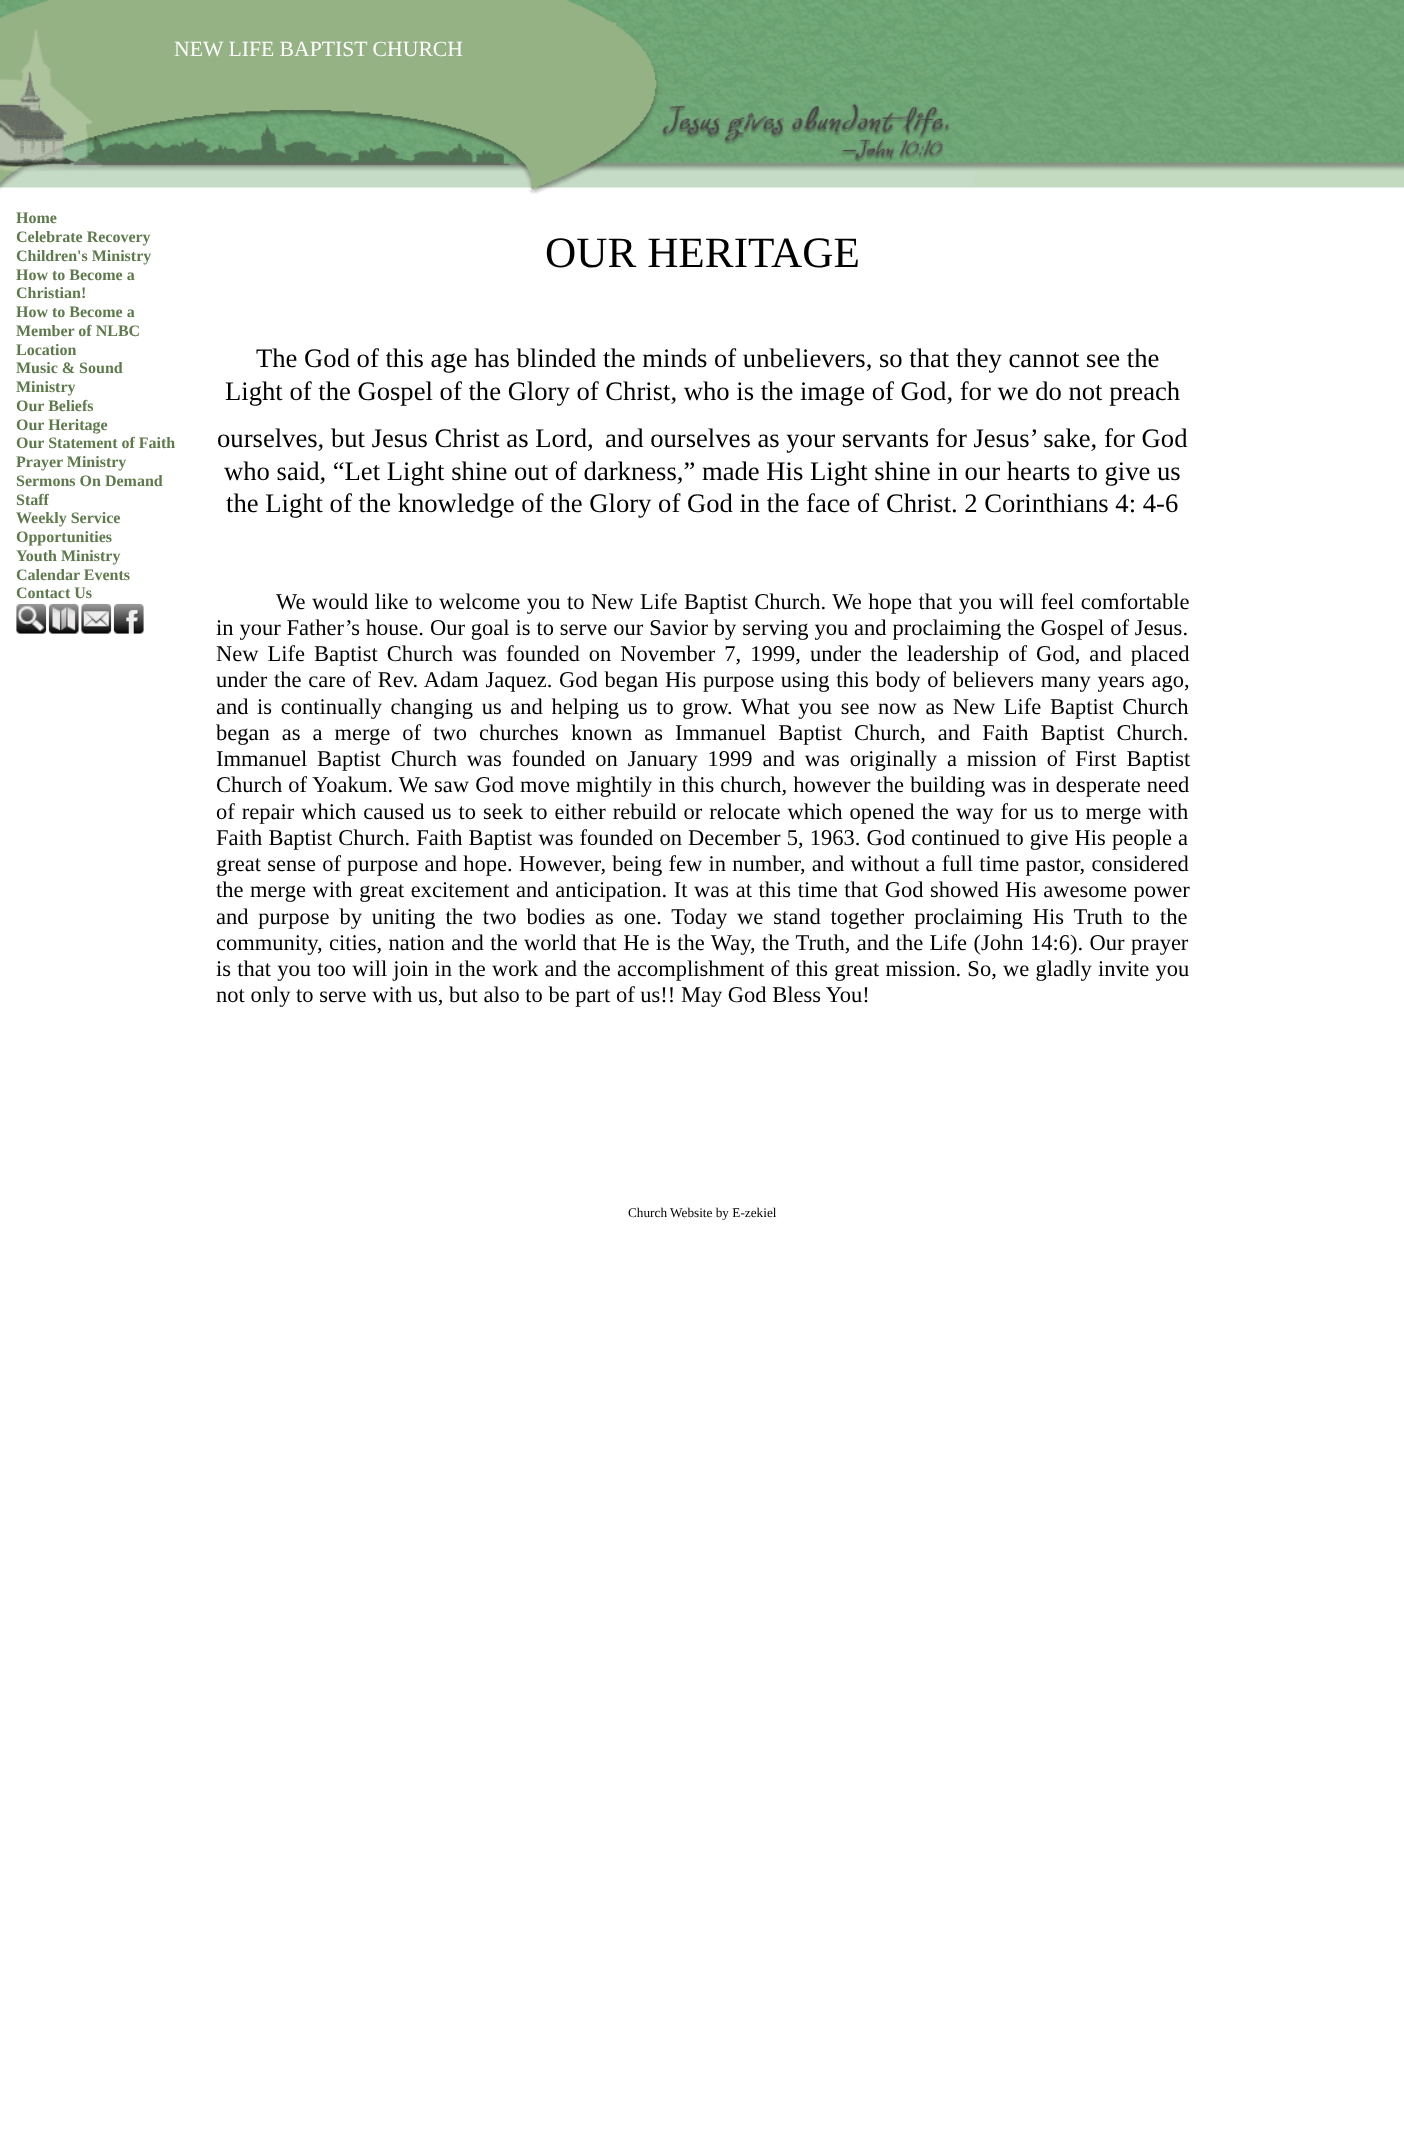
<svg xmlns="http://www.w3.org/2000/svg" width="1404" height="2147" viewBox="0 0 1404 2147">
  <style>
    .t1 { font: 21.7px Liberation Serif; fill: #fff; }
    .t2 { font: bold 16px Liberation Serif; fill: #5e794b; }
    .t3 { font: 43.25px Liberation Serif; fill: #000; }
    .t4 { font: 26.65px Liberation Serif; fill: #000; }
    .t5 { font: 22.5px Liberation Serif; fill: #000; }
    .t6 { font: 13.25px Liberation Serif; fill: #000; }
  </style>
  <rect width="100%" height="100%" fill="#fff"/>
  <image x="975" y="0" width="429" height="188" href="images/1.png"/>
  <image x="0" y="0" width="975" height="194" href="images/2.png"/>
  <text x="174" y="56" class="t1">NEW LIFE BAPTIST CHURCH</text>
  <text x="16" y="223" class="t2">Home</text>
  <text x="16" y="242" class="t2">Celebrate Recovery</text>
  <text x="16" y="261" class="t2">Children's Ministry</text>
  <text x="16" y="280" class="t2">How to Become a</text>
  <text x="16" y="298" class="t2">Christian!</text>
  <text x="16" y="317" class="t2">How to Become a</text>
  <text x="16" y="336" class="t2">Member of NLBC</text>
  <text x="16" y="355" class="t2">Location</text>
  <text x="16" y="373" class="t2">Music &amp; Sound</text>
  <text x="16" y="392" class="t2">Ministry</text>
  <text x="16" y="411" class="t2">Our Beliefs</text>
  <text x="16" y="430" class="t2">Our Heritage</text>
  <text x="16" y="448" class="t2">Our Statement of Faith</text>
  <text x="16" y="467" class="t2">Prayer Ministry</text>
  <text x="16" y="486" class="t2">Sermons On Demand</text>
  <text x="16" y="505" class="t2">Staff</text>
  <text x="16" y="523" class="t2">Weekly Service</text>
  <text x="16" y="542" class="t2">Opportunities</text>
  <text x="16" y="561" class="t2">Youth Ministry</text>
  <text x="16" y="580" class="t2">Calendar Events</text>
  <text x="16" y="598" class="t2">Contact Us</text>
  <image x="16" y="603" width="31" height="31" href="images/3.png"/>
  <image x="48" y="603" width="31" height="31" href="images/4.png"/>
  <image x="81" y="603" width="31" height="31" href="images/5.png"/>
  <image x="113" y="603" width="31" height="31" href="images/6.png"/>
  <text x="545" y="267" class="t3">OUR HERITAGE</text>
  <text x="256" y="367" class="t4">The God of this age has blinded the minds of unbelievers, so that they cannot see the</text>
  <text x="225" y="400" class="t4">Light of the Gospel of the Glory of Christ, who is the image of God, for we do not preach</text>
  <text x="217" y="447" class="t4">ourselves, but Jesus Christ as Lord,</text>
  <text x="605" y="447" class="t4">and ourselves as your servants for Jesus’ sake, for God</text>
  <text x="224" y="480" class="t4">who said, “Let Light shine out of darkness,” made His Light shine in our hearts to give us</text>
  <text x="226" y="512" class="t4">the Light of the knowledge of the Glory of God in the face of Christ. 2 Corinthians 4: 4-6</text>
  <text x="276" y="609" word-spacing="0.9" class="t5">We would like to welcome you to New Life Baptist Church. We hope that you will feel comfortable</text>
  <text x="216" y="635" word-spacing="0.3" class="t5">in your Father’s house. Our goal is to serve our Savior by serving you and proclaiming the Gospel of Jesus.</text>
  <text x="216" y="661" word-spacing="3.4" class="t5">New Life Baptist Church was founded on November 7, 1999, under the leadership of God, and placed</text>
  <text x="216" y="687" word-spacing="1.1" class="t5">under the care of Rev. Adam Jaquez. God began His purpose using this body of believers many years ago,</text>
  <text x="216" y="714" word-spacing="3" class="t5">and is continually changing us and helping us to grow. What you see now as New Life Baptist Church</text>
  <text x="216" y="740" word-spacing="6.4" class="t5">began as a merge of two churches known as Immanuel Baptist Church, and Faith Baptist Church.</text>
  <text x="216" y="766" word-spacing="4.25" class="t5">Immanuel Baptist Church was founded on January 1999 and was originally a mission of First Baptist</text>
  <text x="216" y="792" word-spacing="0.4" class="t5">Church of Yoakum. We saw God move mightily in this church, however the building was in desperate need</text>
  <text x="216" y="819" word-spacing="1.4" class="t5">of repair which caused us to seek to either rebuild or relocate which opened the way for us to merge with</text>
  <text x="216" y="845" word-spacing="0.5" class="t5">Faith Baptist Church. Faith Baptist was founded on December 5, 1963. God continued to give His people a</text>
  <text x="216" y="871" word-spacing="0.6" class="t5">great sense of purpose and hope. However, being few in number, and without a full time pastor, considered</text>
  <text x="216" y="897" word-spacing="1" class="t5">the merge with great excitement and anticipation. It was at this time that God showed His awesome power</text>
  <text x="216" y="924" word-spacing="4.25" class="t5">and purpose by uniting the two bodies as one. Today we stand together proclaiming His Truth to the</text>
  <text x="216" y="950" word-spacing="0.8" class="t5">community, cities, nation and the world that He is the Way, the Truth, and the Life (John 14:6). Our prayer</text>
  <text x="216" y="976" word-spacing="0.6" class="t5">is that you too will join in the work and the accomplishment of this great mission. So, we gladly invite you</text>
  <text x="216" y="1002" class="t5">not only to serve with us, but also to be part of us!! May God Bless You!</text>
  <text x="628" y="1217" class="t6">Church Website by E-zekiel</text>
</svg>
